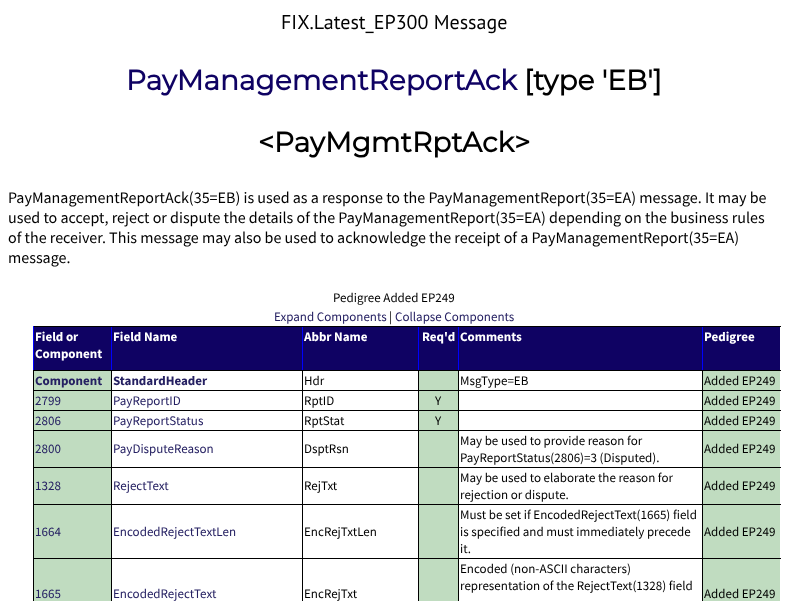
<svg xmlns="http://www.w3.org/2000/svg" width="788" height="601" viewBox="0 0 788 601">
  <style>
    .t1 { font: 20px PT Sans; fill: #000; }
    .t2 { font: bold 28px Montserrat; fill: #0f0263; }
    .t3 { font: bold 28px Montserrat; fill: #000; }
    .t4 { font: 16px Source Sans Pro; fill: #000; }
    .t5 { font: 13px Source Sans Pro; fill: #000; }
    .t6 { font: 13px Source Sans Pro; fill: #252062; }
    .t7 { font: bold 13px Source Sans Pro; fill: #fff; }
    .t8 { font: bold 13px Source Sans Pro; fill: #252062; }
  </style>
  <rect width="100%" height="100%" fill="#fff"/>
  <text x="281" y="29" class="t1">FIX.Latest_EP300 Message</text>
  <text x="126" y="90" class="t2">PayManagementReportAck</text>
  <text x="524" y="90" class="t3">[type 'EB']</text>
  <text x="258" y="152" class="t3">&lt;PayMgmtRptAck&gt;</text>
  <text x="8" y="203" class="t4">PayManagementReportAck(35=EB) is used as a response to the PayManagementReport(35=EA) message. It may be</text>
  <text x="8" y="223" class="t4">used to accept, reject or dispute the details of the PayManagementReport(35=EA) depending on the business rules</text>
  <text x="8" y="243" class="t4">of the receiver. This message may also be used to acknowledge the receipt of a PayManagementReport(35=EA)</text>
  <text x="8" y="263" class="t4">message.</text>
  <text x="333" y="302" class="t5">Pedigree Added EP249</text>
  <text x="274" y="321" class="t6">Expand Components</text>
  <text x="389" y="321" class="t5">|</text>
  <text x="395" y="321" class="t6">Collapse Components</text>
  <rect x="34" y="327" width="77" height="43" fill="#0f0263"/>
  <rect x="702" y="326" width="79" height="1" fill="#000"/>
  <rect x="702" y="326" width="1" height="45" fill="#00f"/>
  <rect x="458" y="326" width="245" height="1" fill="#000"/>
  <rect x="458" y="326" width="1" height="45" fill="#00f"/>
  <rect x="418" y="326" width="41" height="1" fill="#000"/>
  <rect x="418" y="326" width="1" height="45" fill="#00f"/>
  <rect x="302" y="326" width="117" height="1" fill="#000"/>
  <rect x="302" y="370" width="117" height="1" fill="#000"/>
  <rect x="302" y="326" width="1" height="45" fill="#00f"/>
  <rect x="111" y="326" width="192" height="1" fill="#000"/>
  <rect x="111" y="370" width="192" height="1" fill="#000"/>
  <rect x="111" y="326" width="1" height="45" fill="#00f"/>
  <rect x="33" y="326" width="79" height="1" fill="#000"/>
  <rect x="33" y="326" width="1" height="45" fill="#00f"/>
  <text x="35" y="341" class="t7">Field or</text>
  <text x="35" y="358" class="t7">Component</text>
  <rect x="112" y="327" width="190" height="43" fill="#0f0263"/>
  <text x="113" y="341" class="t7">Field Name</text>
  <rect x="303" y="327" width="115" height="43" fill="#0f0263"/>
  <text x="304" y="341" class="t7">Abbr Name</text>
  <rect x="419" y="327" width="39" height="43" fill="#0f0263"/>
  <text x="422" y="341" class="t7">Req'd</text>
  <rect x="459" y="327" width="243" height="43" fill="#0f0263"/>
  <text x="460" y="341" class="t7">Comments</text>
  <rect x="703" y="327" width="77" height="43" fill="#0f0263"/>
  <text x="704" y="341" class="t7">Pedigree</text>
  <rect x="34" y="371" width="77" height="19" fill="#c0dcc0"/>
  <rect x="702" y="370" width="79" height="1" fill="#000"/>
  <rect x="702" y="370" width="1" height="21" fill="#000"/>
  <rect x="458" y="370" width="245" height="1" fill="#000"/>
  <rect x="458" y="370" width="1" height="21" fill="#000"/>
  <rect x="418" y="370" width="41" height="1" fill="#000"/>
  <rect x="418" y="370" width="1" height="21" fill="#000"/>
  <rect x="302" y="390" width="117" height="1" fill="#000"/>
  <rect x="302" y="370" width="1" height="21" fill="#000"/>
  <rect x="111" y="390" width="192" height="1" fill="#000"/>
  <rect x="111" y="370" width="1" height="21" fill="#000"/>
  <rect x="33" y="370" width="79" height="1" fill="#000"/>
  <rect x="33" y="370" width="1" height="21" fill="#000"/>
  <text x="35" y="385" class="t8">Component</text>
  <text x="113" y="385" class="t8">StandardHeader</text>
  <text x="304" y="385" class="t5">Hdr</text>
  <rect x="419" y="371" width="39" height="19" fill="#c0dcc0"/>
  <text x="460" y="385" class="t5">MsgType=EB</text>
  <rect x="703" y="371" width="77" height="19" fill="#c0dcc0"/>
  <text x="704" y="385" class="t5">Added EP249</text>
  <rect x="34" y="391" width="77" height="19" fill="#c0dcc0"/>
  <rect x="702" y="410" width="79" height="1" fill="#000"/>
  <rect x="702" y="430" width="79" height="1" fill="#000"/>
  <rect x="702" y="467" width="79" height="1" fill="#000"/>
  <rect x="702" y="504" width="79" height="1" fill="#000"/>
  <rect x="702" y="558" width="79" height="1" fill="#000"/>
  <rect x="702" y="558" width="1" height="43" fill="#000"/>
  <rect x="458" y="558" width="245" height="1" fill="#000"/>
  <rect x="702" y="504" width="1" height="55" fill="#000"/>
  <rect x="458" y="504" width="245" height="1" fill="#000"/>
  <rect x="702" y="467" width="1" height="38" fill="#000"/>
  <rect x="458" y="467" width="245" height="1" fill="#000"/>
  <rect x="702" y="430" width="1" height="38" fill="#000"/>
  <rect x="458" y="430" width="245" height="1" fill="#000"/>
  <rect x="702" y="410" width="1" height="21" fill="#000"/>
  <rect x="458" y="410" width="245" height="1" fill="#000"/>
  <rect x="458" y="558" width="1" height="43" fill="#000"/>
  <rect x="418" y="558" width="41" height="1" fill="#000"/>
  <rect x="458" y="504" width="1" height="55" fill="#000"/>
  <rect x="418" y="504" width="41" height="1" fill="#000"/>
  <rect x="458" y="467" width="1" height="38" fill="#000"/>
  <rect x="418" y="467" width="41" height="1" fill="#000"/>
  <rect x="458" y="430" width="1" height="38" fill="#000"/>
  <rect x="418" y="430" width="41" height="1" fill="#000"/>
  <rect x="458" y="410" width="1" height="21" fill="#000"/>
  <rect x="418" y="410" width="41" height="1" fill="#000"/>
  <rect x="418" y="558" width="1" height="43" fill="#000"/>
  <rect x="302" y="558" width="117" height="1" fill="#000"/>
  <rect x="418" y="504" width="1" height="55" fill="#000"/>
  <rect x="302" y="504" width="117" height="1" fill="#000"/>
  <rect x="418" y="467" width="1" height="38" fill="#000"/>
  <rect x="302" y="467" width="117" height="1" fill="#000"/>
  <rect x="418" y="430" width="1" height="38" fill="#000"/>
  <rect x="302" y="430" width="117" height="1" fill="#000"/>
  <rect x="418" y="410" width="1" height="21" fill="#000"/>
  <rect x="302" y="410" width="117" height="1" fill="#000"/>
  <rect x="302" y="558" width="1" height="43" fill="#000"/>
  <rect x="111" y="558" width="192" height="1" fill="#000"/>
  <rect x="302" y="504" width="1" height="55" fill="#000"/>
  <rect x="111" y="504" width="192" height="1" fill="#000"/>
  <rect x="302" y="467" width="1" height="38" fill="#000"/>
  <rect x="111" y="467" width="192" height="1" fill="#000"/>
  <rect x="302" y="430" width="1" height="38" fill="#000"/>
  <rect x="111" y="430" width="192" height="1" fill="#000"/>
  <rect x="302" y="410" width="1" height="21" fill="#000"/>
  <rect x="111" y="410" width="192" height="1" fill="#000"/>
  <rect x="111" y="558" width="1" height="43" fill="#000"/>
  <rect x="33" y="558" width="79" height="1" fill="#000"/>
  <rect x="111" y="504" width="1" height="55" fill="#000"/>
  <rect x="33" y="504" width="79" height="1" fill="#000"/>
  <rect x="111" y="467" width="1" height="38" fill="#000"/>
  <rect x="33" y="467" width="79" height="1" fill="#000"/>
  <rect x="111" y="430" width="1" height="38" fill="#000"/>
  <rect x="33" y="430" width="79" height="1" fill="#000"/>
  <rect x="111" y="410" width="1" height="21" fill="#000"/>
  <rect x="33" y="410" width="79" height="1" fill="#000"/>
  <rect x="111" y="390" width="1" height="21" fill="#000"/>
  <rect x="33" y="390" width="79" height="1" fill="#000"/>
  <rect x="33" y="558" width="1" height="43" fill="#000"/>
  <rect x="33" y="504" width="1" height="55" fill="#000"/>
  <rect x="33" y="467" width="1" height="38" fill="#000"/>
  <rect x="33" y="430" width="1" height="38" fill="#000"/>
  <rect x="33" y="410" width="1" height="21" fill="#000"/>
  <rect x="33" y="390" width="1" height="21" fill="#000"/>
  <text x="35" y="405" class="t6">2799</text>
  <text x="113" y="405" class="t6">PayReportID</text>
  <rect x="302" y="390" width="1" height="21" fill="#000"/>
  <text x="304" y="405" class="t5">RptID</text>
  <rect x="419" y="391" width="39" height="19" fill="#c0dcc0"/>
  <rect x="702" y="390" width="79" height="1" fill="#000"/>
  <rect x="702" y="390" width="1" height="21" fill="#000"/>
  <rect x="458" y="390" width="245" height="1" fill="#000"/>
  <rect x="458" y="390" width="1" height="21" fill="#000"/>
  <rect x="418" y="390" width="41" height="1" fill="#000"/>
  <rect x="418" y="390" width="1" height="21" fill="#000"/>
  <text x="435" y="405" class="t5">Y</text>
  <rect x="703" y="391" width="77" height="19" fill="#c0dcc0"/>
  <text x="704" y="405" class="t5">Added EP249</text>
  <rect x="34" y="411" width="77" height="19" fill="#c0dcc0"/>
  <text x="35" y="425" class="t6">2806</text>
  <text x="113" y="425" class="t6">PayReportStatus</text>
  <text x="304" y="425" class="t5">RptStat</text>
  <rect x="419" y="411" width="39" height="19" fill="#c0dcc0"/>
  <text x="435" y="425" class="t5">Y</text>
  <rect x="703" y="411" width="77" height="19" fill="#c0dcc0"/>
  <text x="704" y="425" class="t5">Added EP249</text>
  <rect x="34" y="431" width="77" height="36" fill="#c0dcc0"/>
  <text x="35" y="453" class="t6">2800</text>
  <text x="113" y="453" class="t6">PayDisputeReason</text>
  <text x="304" y="453" class="t5">DsptRsn</text>
  <rect x="419" y="431" width="39" height="36" fill="#c0dcc0"/>
  <text x="460" y="445" class="t5">May be used to provide reason for</text>
  <text x="460" y="462" class="t5">PayReportStatus(2806)=3 (Disputed).</text>
  <rect x="703" y="431" width="77" height="36" fill="#c0dcc0"/>
  <text x="704" y="453" class="t5">Added EP249</text>
  <rect x="34" y="468" width="77" height="36" fill="#c0dcc0"/>
  <text x="35" y="490" class="t6">1328</text>
  <text x="113" y="490" class="t6">RejectText</text>
  <text x="304" y="490" class="t5">RejTxt</text>
  <rect x="419" y="468" width="39" height="36" fill="#c0dcc0"/>
  <text x="460" y="482" class="t5">May be used to elaborate the reason for</text>
  <text x="460" y="499" class="t5">rejection or dispute.</text>
  <rect x="703" y="468" width="77" height="36" fill="#c0dcc0"/>
  <text x="704" y="490" class="t5">Added EP249</text>
  <rect x="34" y="505" width="77" height="53" fill="#c0dcc0"/>
  <text x="35" y="536" class="t6">1664</text>
  <text x="113" y="536" class="t6">EncodedRejectTextLen</text>
  <text x="304" y="536" class="t5">EncRejTxtLen</text>
  <rect x="419" y="505" width="39" height="53" fill="#c0dcc0"/>
  <text x="460" y="519" class="t5">Must be set if EncodedRejectText(1665) field</text>
  <text x="460" y="536" class="t5">is specified and must immediately precede</text>
  <text x="460" y="553" class="t5">it.</text>
  <rect x="703" y="505" width="77" height="53" fill="#c0dcc0"/>
  <text x="704" y="536" class="t5">Added EP249</text>
  <rect x="419" y="559" width="39" height="42" fill="#c0dcc0"/>
  <text x="460" y="573" class="t5">Encoded (non-ASCII characters)</text>
  <text x="460" y="590" class="t5">representation of the RejectText(1328) field</text>
  <rect x="34" y="559" width="77" height="42" fill="#c0dcc0"/>
  <text x="35" y="598" class="t6">1665</text>
  <text x="113" y="598" class="t6">EncodedRejectText</text>
  <text x="304" y="598" class="t5">EncRejTxt</text>
  <rect x="703" y="559" width="77" height="42" fill="#c0dcc0"/>
  <text x="704" y="598" class="t5">Added EP249</text>
</svg>
